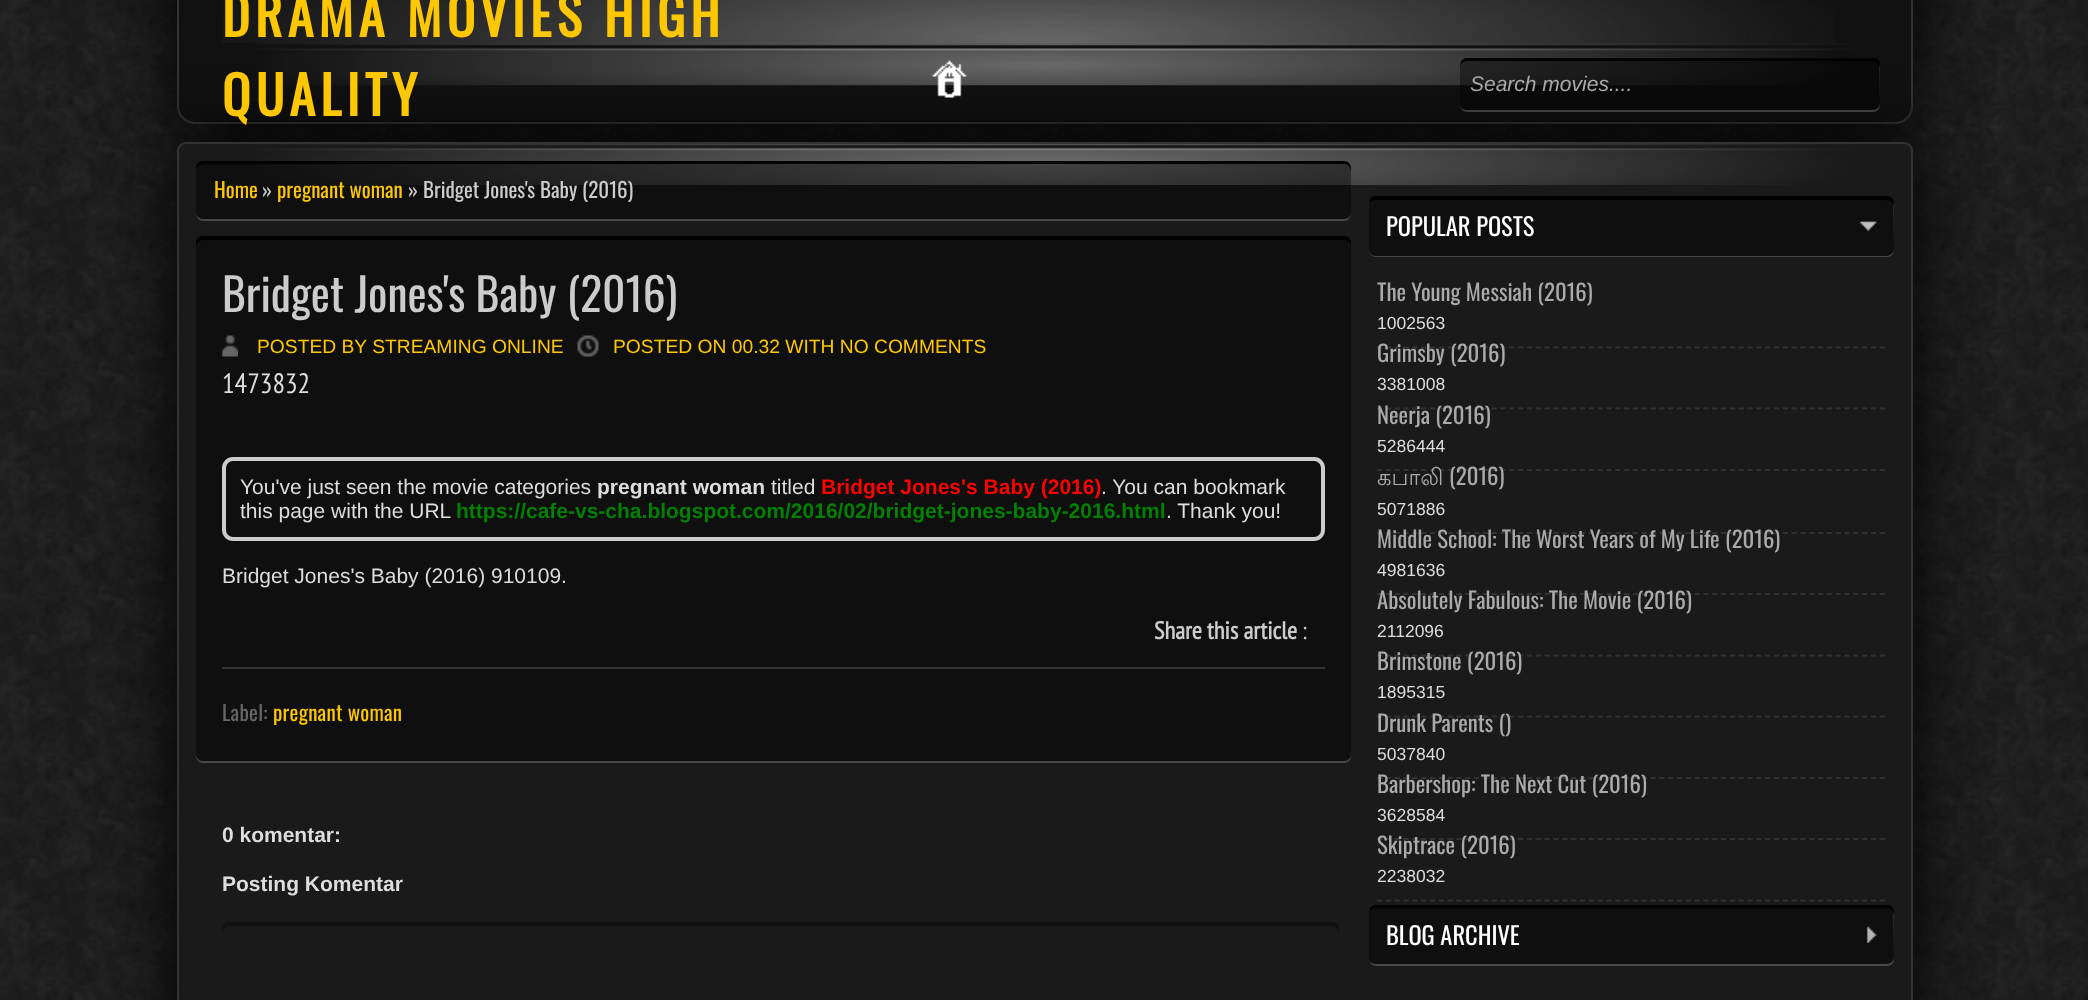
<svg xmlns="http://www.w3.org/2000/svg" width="2088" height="1000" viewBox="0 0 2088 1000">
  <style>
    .t1 { font: bold 52.5px Oswald; letter-spacing: 5.25px; fill: #fec700; }
    .t2 { font: italic 21px Liberation Sans; fill: #aaa; }
    .t3 { font: 21px Oswald; fill: #fec700; }
    .t4 { font: 21px Oswald; fill: #ccc; }
    .t5 { font: 45.5px Oswald; fill: #ccc; }
    .t6 { font: 19.25px Liberation Sans; fill: #fec700; }
    .t7 { font: 28px PT Sans Narrow; fill: #ddd; }
    .t8 { font: 21px Liberation Sans; fill: #ddd; }
    .t9 { font: bold 21px Liberation Sans; fill: #ddd; }
    .t10 { font: bold 21px Liberation Sans; fill: #f00; }
    .t11 { font: bold 21px Liberation Sans; fill: #008000; }
    .t12 { font: bold 24.5px PT Sans Narrow; fill: #ccc; }
    .t13 { font: 24.5px PT Sans Narrow; fill: #ccc; }
    .t14 { font: 21px Oswald; letter-spacing: 0.25px; fill: #666; }
    .t15 { font: 21px Oswald; letter-spacing: 0.25px; fill: #fec700; }
    .t16 { font: 24.5px Oswald; fill: #fff; }
    .t17 { font: 22.75px Oswald; fill: #aaa; }
    .t18 { font: 17.5px Liberation Sans; fill: #ddd; }
    .t19 { font: 22.75px Lohit Tamil; fill: #aaa; }
  </style>
  <rect width="100%" height="100%" fill="#000"/>
  <image x="0" y="0" width="2088" height="1000" href="images/1.png"/>
  <rect x="177" y="-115" width="1736" height="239" rx="18" fill="#000" filter="blur(35px)"/>
  <path d="M178-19H1912V106C1912 115.5 1904.5 123 1895 123H195C185.5 123 178 115.5 178 106Z" fill="#111" stroke="#323232" stroke-width="2"/>
  <image x="222" y="0" width="1613" height="44" href="images/2.png"/>
  <image x="256" y="43" width="1596" height="43" href="images/3.png"/>
  <rect x="177" y="142" width="1736" height="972" rx="9" fill="#000" filter="blur(35px)"/>
  <text x="222" y="37" class="t1">DRAMA MOVIES HIGH</text>
  <text x="222" y="116" class="t1">QUALITY</text>
  <image x="932" y="60" width="35" height="38" href="images/4.png"/>
  <path d="M1460 106C1461 109 1463 112 1467 112H1873C1877 112 1880 109 1880 105V67L1879 64L1880 103C1880 107 1876 110 1872 110H1466C1464 110 1461 109 1460 106Z" fill="#ffffff33"/>
  <rect x="1460" y="58" width="420" height="52" rx="7" fill="#00000066"/>
  <path d="M1466 61H1872C1876 61 1880 64 1880 68C1880 63 1879 58 1873 58H1466C1461 59 1460 64 1460 68C1460 64 1463 61 1466 61Z" fill="#000000e6"/>
  <text x="1470" y="91" class="t2">Search movies....</text>
  <rect x="177" y="142" width="1736" height="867" rx="9" fill="#1a1a1a"/>
  <image x="256" y="144" width="1595" height="41" href="images/5.png"/>
  <rect x="178" y="143" width="1734" height="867" rx="8" fill="none" stroke="#333" stroke-width="2"/>
  <path d="M196 212C196 216 198 221 203 221H1344C1349 221 1351 216 1351 212C1351 216 1348 219 1344 219H203C199 219 196 216 196 212Z" fill="#484848"/>
  <rect x="196" y="161" width="1155" height="58" rx="7" fill="#00000066"/>
  <path d="M203 164H1344C1348 164 1351 168 1351 172V168C1351 164 1348 161 1344 161H203C199 161 196 164 196 168V172C196 168 199 164 203 164Z" fill="#000000e6"/>
  <text x="214" y="198" class="t3">Home</text>
  <text x="262" y="198" class="t4">»</text>
  <text x="277" y="198" class="t3">pregnant woman</text>
  <text x="408" y="198" class="t4">» Bridget Jones's Baby (2016)</text>
  <path d="M196 754V756C196 760 199 763 203 763H1344C1348 763 1351 760 1351 756V754C1351 758 1348 761 1344 761H203C199 761 196 758 196 754Z" fill="#484848"/>
  <rect x="196" y="236" width="1155" height="525" rx="7" fill="#00000066"/>
  <path d="M203 240H1344C1348 240 1351 243 1351 247V243C1351 239 1348 236 1344 236H203C199 236 196 239 196 243V247C196 243 199 240 203 240Z" fill="#000000e6"/>
  <text x="222" y="312" class="t5">Bridget Jones's Baby (2016)</text>
  <image x="222" y="335" width="16" height="22" href="images/6.png"/>
  <text x="257" y="353" class="t6">POSTED BY STREAMING ONLINE</text>
  <image x="577" y="335" width="22" height="22" href="images/7.png"/>
  <text x="613" y="353" class="t6">POSTED ON 00.32 WITH NO COMMENTS</text>
  <text x="222" y="393" class="t7">1473832</text>
  <rect x="224" y="459" width="1099" height="80" rx="9" fill="none" stroke="#ccc" stroke-width="4"/>
  <text x="240" y="494" class="t8">You've just seen the movie categories</text>
  <text x="597" y="494" class="t9">pregnant woman</text>
  <text x="771" y="494" class="t8">titled</text>
  <text x="821" y="494" class="t10">Bridget Jones's Baby (2016)</text>
  <text x="1101" y="494" class="t8">. You can bookmark</text>
  <text x="240" y="518" class="t8">this page with the URL</text>
  <text x="456" y="518" class="t11">https://cafe-vs-cha.blogspot.com/2016/02/bridget-jones-baby-2016.html</text>
  <text x="1166" y="518" class="t8">. Thank you!</text>
  <text x="222" y="583" class="t8">Bridget Jones's Baby (2016) 910109.</text>
  <rect x="222" y="667" width="1103" height="2" fill="#323232"/>
  <text x="1154" y="639" class="t12">Share this article</text>
  <text x="1302" y="639" class="t13">:</text>
  <text x="222" y="721" class="t14">Label:</text>
  <text x="273" y="721" class="t15">pregnant woman</text>
  <text x="222" y="842" class="t9">0 komentar:</text>
  <text x="222" y="891" class="t9">Posting Komentar</text>
  <path d="M229 926H1332C1336 926 1339 929 1339 933V929C1339 925 1336 922 1332 922H229C225 922 222 925 222 929V933C222 929 225 926 229 926Z" fill="#101010"/>
  <path d="M1369 251C1370 255 1373 257 1376 257H1887C1891 257 1894 254 1894 250V205L1893 202L1894 248C1894 252 1890 256 1886 256H1376C1373 256 1370 254 1369 251Z" fill="#484848"/>
  <rect x="1369" y="196" width="525" height="60" rx="7" fill="#00000066"/>
  <image x="1859" y="221" width="18" height="10" href="images/8.png"/>
  <path d="M1376 200H1886C1890 200 1894 203 1894 206V203C1894 199 1891 196 1887 196H1376C1372 196 1369 199 1369 203C1370 201 1373 200 1376 200Z" fill="#000000e6"/>
  <text x="1386" y="236" class="t16">POPULAR POSTS</text>
  <path d="M1377 347.5H1885" fill="none" stroke="#323232" stroke-width="1.8" stroke-dasharray="5.25 3.57"/>
  <text x="1377" y="301" class="t17">The Young Messiah (2016)</text>
  <text x="1377" y="329" class="t18">1002563</text>
  <path d="M1377 408.5H1885" fill="none" stroke="#323232" stroke-width="1.8" stroke-dasharray="5.25 3.57"/>
  <text x="1377" y="362" class="t17">Grimsby (2016)</text>
  <text x="1377" y="390" class="t18">3381008</text>
  <path d="M1377 470H1885" fill="none" stroke="#323232" stroke-width="1.8" stroke-dasharray="5.25 3.57"/>
  <text x="1377" y="424" class="t17">Neerja (2016)</text>
  <text x="1377" y="452" class="t18">5286444</text>
  <path d="M1377 533H1885" fill="none" stroke="#323232" stroke-width="1.8" stroke-dasharray="5.25 3.57"/>
  <text x="1377" y="485" class="t19">கபாலி</text>
  <text x="1449" y="485" class="t17">(2016)</text>
  <text x="1377" y="515" class="t18">5071886</text>
  <path d="M1377 594H1885" fill="none" stroke="#323232" stroke-width="1.8" stroke-dasharray="5.25 3.57"/>
  <text x="1377" y="548" class="t17">Middle School: The Worst Years of My Life (2016)</text>
  <text x="1377" y="576" class="t18">4981636</text>
  <path d="M1377 655.5H1885" fill="none" stroke="#323232" stroke-width="1.8" stroke-dasharray="5.25 3.57"/>
  <text x="1377" y="609" class="t17">Absolutely Fabulous: The Movie (2016)</text>
  <text x="1377" y="637" class="t18">2112096</text>
  <path d="M1377 716.5H1885" fill="none" stroke="#323232" stroke-width="1.8" stroke-dasharray="5.25 3.57"/>
  <text x="1377" y="670" class="t17">Brimstone (2016)</text>
  <text x="1377" y="698" class="t18">1895315</text>
  <path d="M1377 778H1885" fill="none" stroke="#323232" stroke-width="1.8" stroke-dasharray="5.25 3.57"/>
  <text x="1377" y="732" class="t17">Drunk Parents ()</text>
  <text x="1377" y="760" class="t18">5037840</text>
  <path d="M1377 839H1885" fill="none" stroke="#323232" stroke-width="1.8" stroke-dasharray="5.25 3.57"/>
  <text x="1377" y="793" class="t17">Barbershop: The Next Cut (2016)</text>
  <text x="1377" y="821" class="t18">3628584</text>
  <path d="M1377 900.5H1885" fill="none" stroke="#323232" stroke-width="1.8" stroke-dasharray="5.25 3.57"/>
  <text x="1377" y="854" class="t17">Skiptrace (2016)</text>
  <text x="1377" y="882" class="t18">2238032</text>
  <path d="M1369 960C1370 963 1372 966 1376 966H1887C1891 966 1894 963 1894 959V914L1893 911L1894 957C1894 961 1890 964 1886 964H1376C1373 964 1370 963 1369 960Z" fill="#484848"/>
  <rect x="1369" y="905" width="525" height="59" rx="7" fill="#00000066"/>
  <image x="1866" y="926" width="11" height="17" href="images/9.png"/>
  <path d="M1376 908H1886C1890 908 1894 911 1894 915V912C1894 908 1891 905 1887 905H1376C1372 905 1369 908 1369 912C1370 909 1373 908 1376 908Z" fill="#000000e6"/>
  <text x="1386" y="945" class="t16">BLOG ARCHIVE</text>
</svg>
